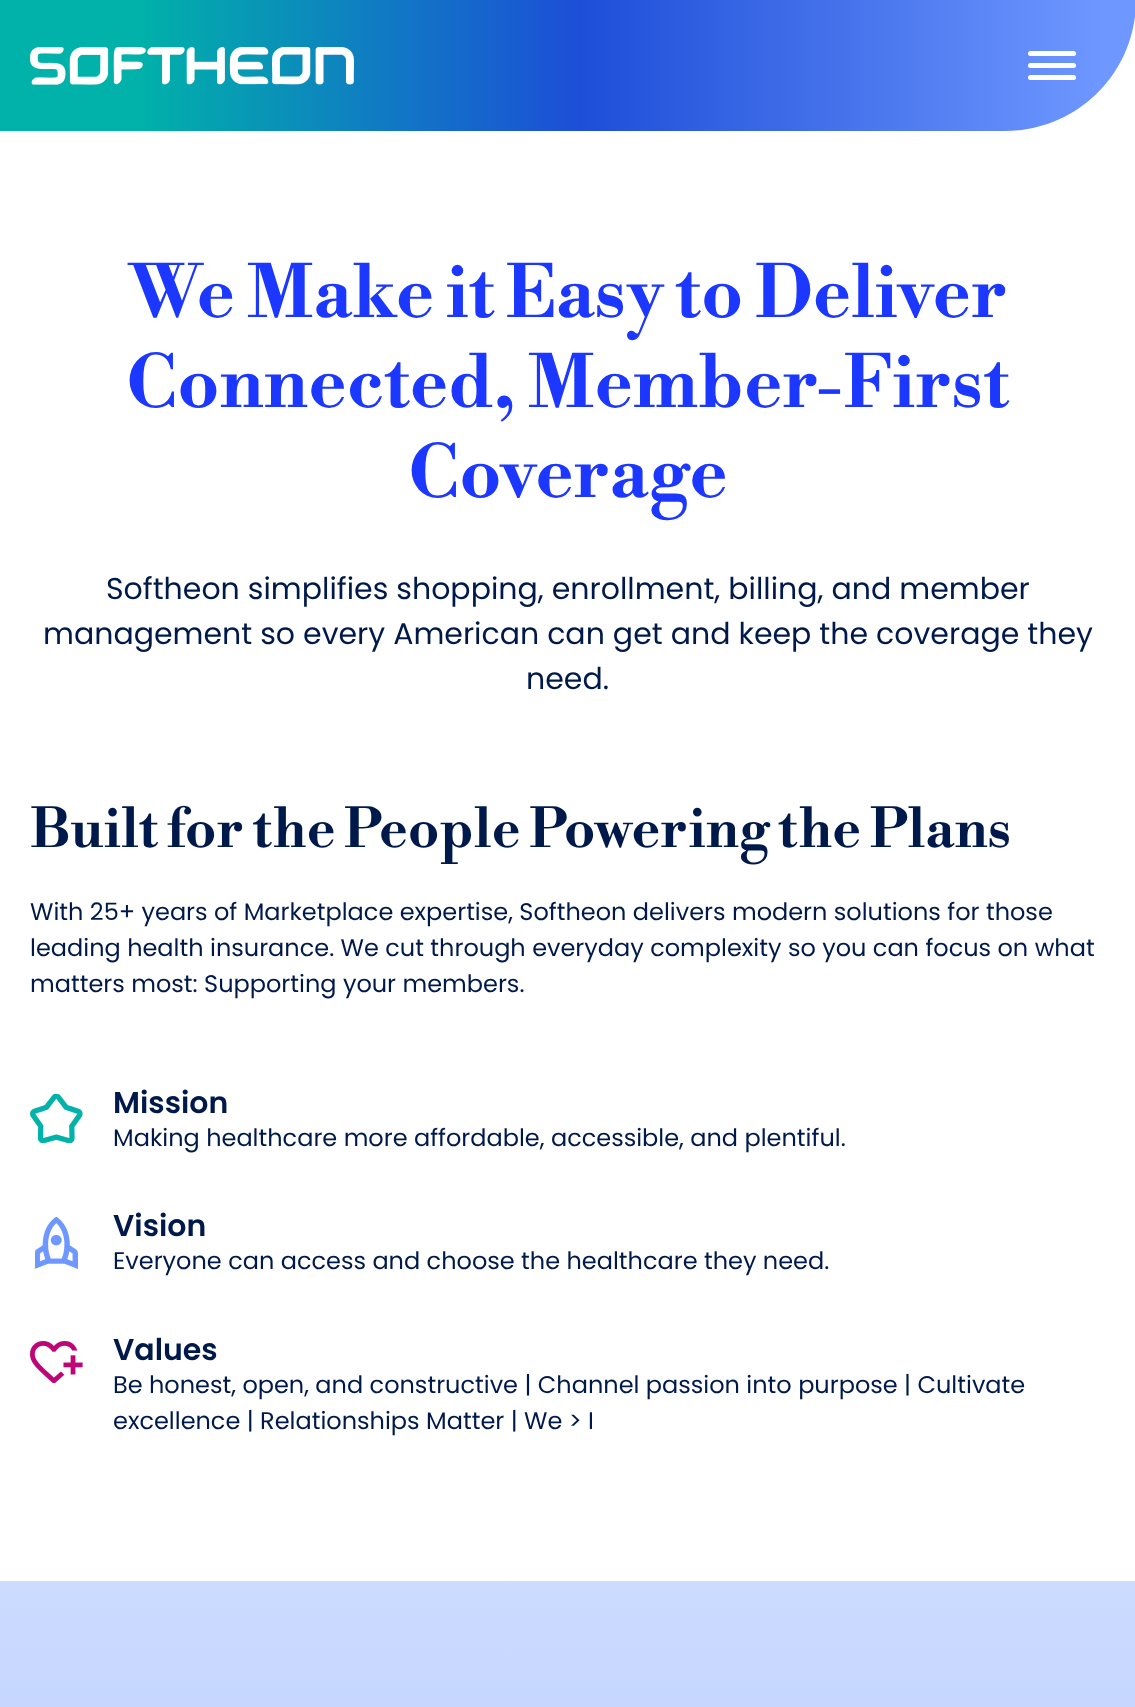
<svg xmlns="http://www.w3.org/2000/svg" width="1135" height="1707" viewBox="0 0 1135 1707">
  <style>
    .t1 { font: bold 72px Libre Bodoni; fill: #1c37ff; }
    .t2 { font: 30px Poppins; fill: #00194b; }
    .t3 { font: bold 54px Libre Bodoni; fill: #00194b; }
    .t4 { font: 24px Poppins; fill: #00194b; }
    .t5 { font: 600 30px Poppins; fill: #00194b; }
  </style>
  <defs>
    <linearGradient id="g1" gradientUnits="userSpaceOnUse" x1="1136" y1="65" x2="0" y2="65"><stop offset="0.03" stop-color="#6e97ff"/><stop offset="0.49" stop-color="#1d4ed8"/><stop offset="0.88" stop-color="#00b2a9"/></linearGradient>
    <linearGradient id="g2" gradientUnits="userSpaceOnUse" x1="568" y1="1581" x2="568" y2="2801"><stop offset="0" stop-color="#ccdbff"/><stop offset="1" stop-color="#90afff"/></linearGradient>
  </defs>
  <rect width="100%" height="100%" fill="#fff"/>
  <path d="M0 0H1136C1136 72.5 1077.5 131 1005 131H0Z" fill="url(#g1)"/>
  <image x="30" y="47" width="324" height="38" href="images/1.png"/>
  <rect x="1028" y="51" width="48" height="5" rx="2.5" fill="#fff"/>
  <rect x="1028" y="63" width="48" height="5" rx="2.5" fill="#fff"/>
  <rect x="1028" y="75" width="48" height="5" rx="2.5" fill="#fff"/>
  <text x="129" y="317" class="t1">We Make it Easy to Deliver</text>
  <text x="126" y="407" class="t1">Connected, Member-First</text>
  <text x="408" y="497" class="t1">Coverage</text>
  <text x="106" y="599" class="t2">Softheon simplifies shopping, enrollment, billing, and member</text>
  <text x="43" y="644" class="t2">management so every American can get and keep the coverage they</text>
  <text x="526" y="689" class="t2">need.</text>
  <text x="30" y="847" class="t3">Built for the People Powering the Plans</text>
  <text x="30" y="920" class="t4">With 25+ years of Marketplace expertise, Softheon delivers modern solutions for those</text>
  <text x="30" y="956" class="t4">leading health insurance. We cut through everyday complexity so you can focus on what</text>
  <text x="30" y="992" class="t4">matters most: Supporting your members.</text>
  <image x="30" y="1094" width="53" height="49" href="images/2.png"/>
  <text x="113" y="1113" class="t5">Mission</text>
  <text x="113" y="1146" class="t4">Making healthcare more affordable, accessible, and plentiful.</text>
  <image x="35" y="1217" width="43" height="52" href="images/3.png"/>
  <text x="113" y="1236" class="t5">Vision</text>
  <text x="113" y="1269" class="t4">Everyone can access and choose the healthcare they need.</text>
  <image x="30" y="1341" width="53" height="42" href="images/4.png"/>
  <text x="113" y="1360" class="t5">Values</text>
  <text x="113" y="1393" class="t4">Be honest, open, and constructive | Channel passion into purpose | Cultivate</text>
  <text x="113" y="1429" class="t4">excellence | Relationships Matter | We &gt; I</text>
  <rect x="0" y="1581" width="1135" height="126" fill="url(#g2)"/>
</svg>
